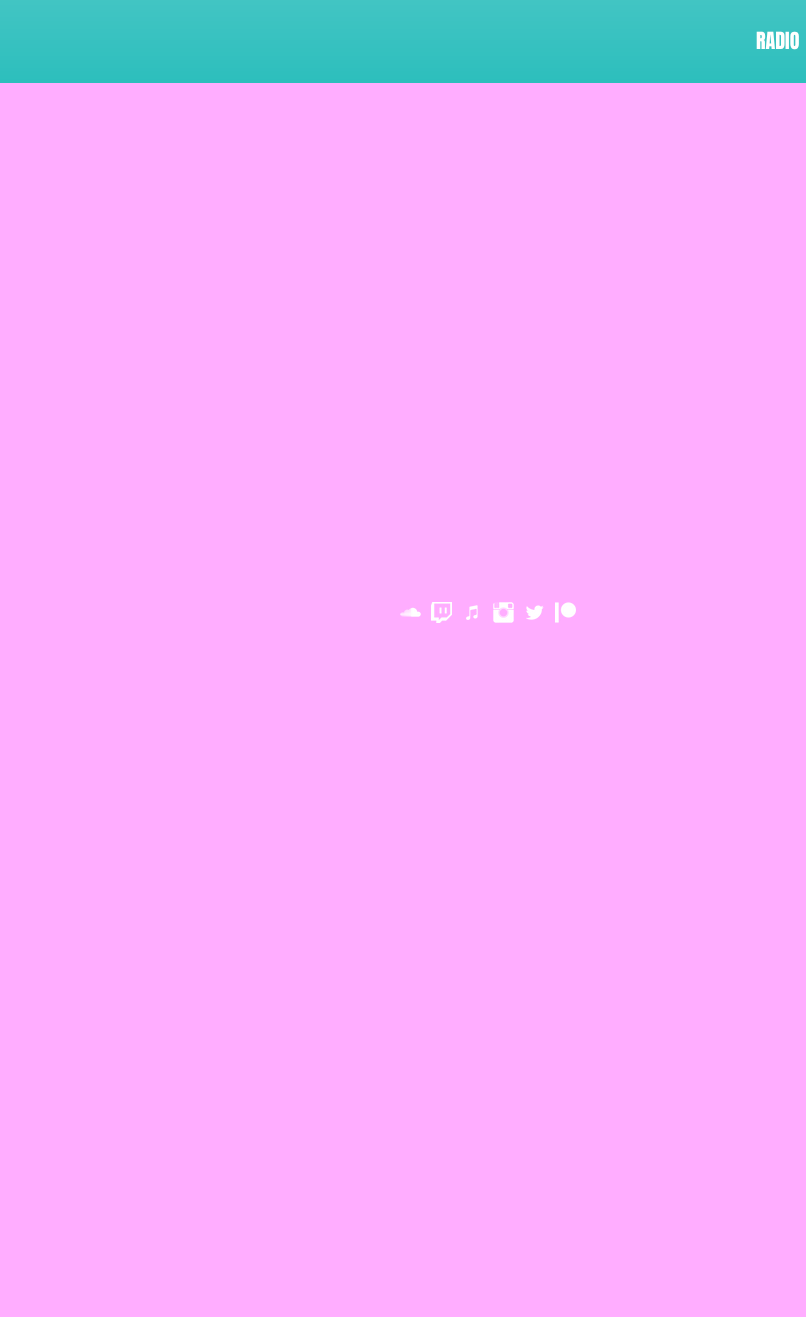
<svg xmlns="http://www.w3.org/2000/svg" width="806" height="1317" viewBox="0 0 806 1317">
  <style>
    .t1 { font: 20px Anton; fill: #fffffe; }
  </style>
  <rect width="100%" height="100%" fill="#ffadff"/>
  <rect x="0" y="0" width="806" height="83" fill="#01b1af"/>
  <image x="0" y="0" width="806" height="83" href="images/1.png"/>
  <text x="756" y="49" class="t1">RADIO</text>
  <image x="400" y="607" width="21" height="10" href="images/2.png"/>
  <image x="431" y="602" width="21" height="21" href="images/3.png"/>
  <image x="466" y="605" width="12" height="15" href="images/4.png"/>
  <image x="493" y="602" width="21" height="21" href="images/5.png"/>
  <image x="526" y="605" width="18" height="15" href="images/6.png"/>
  <image x="555" y="602" width="21" height="21" href="images/7.png"/>
</svg>
